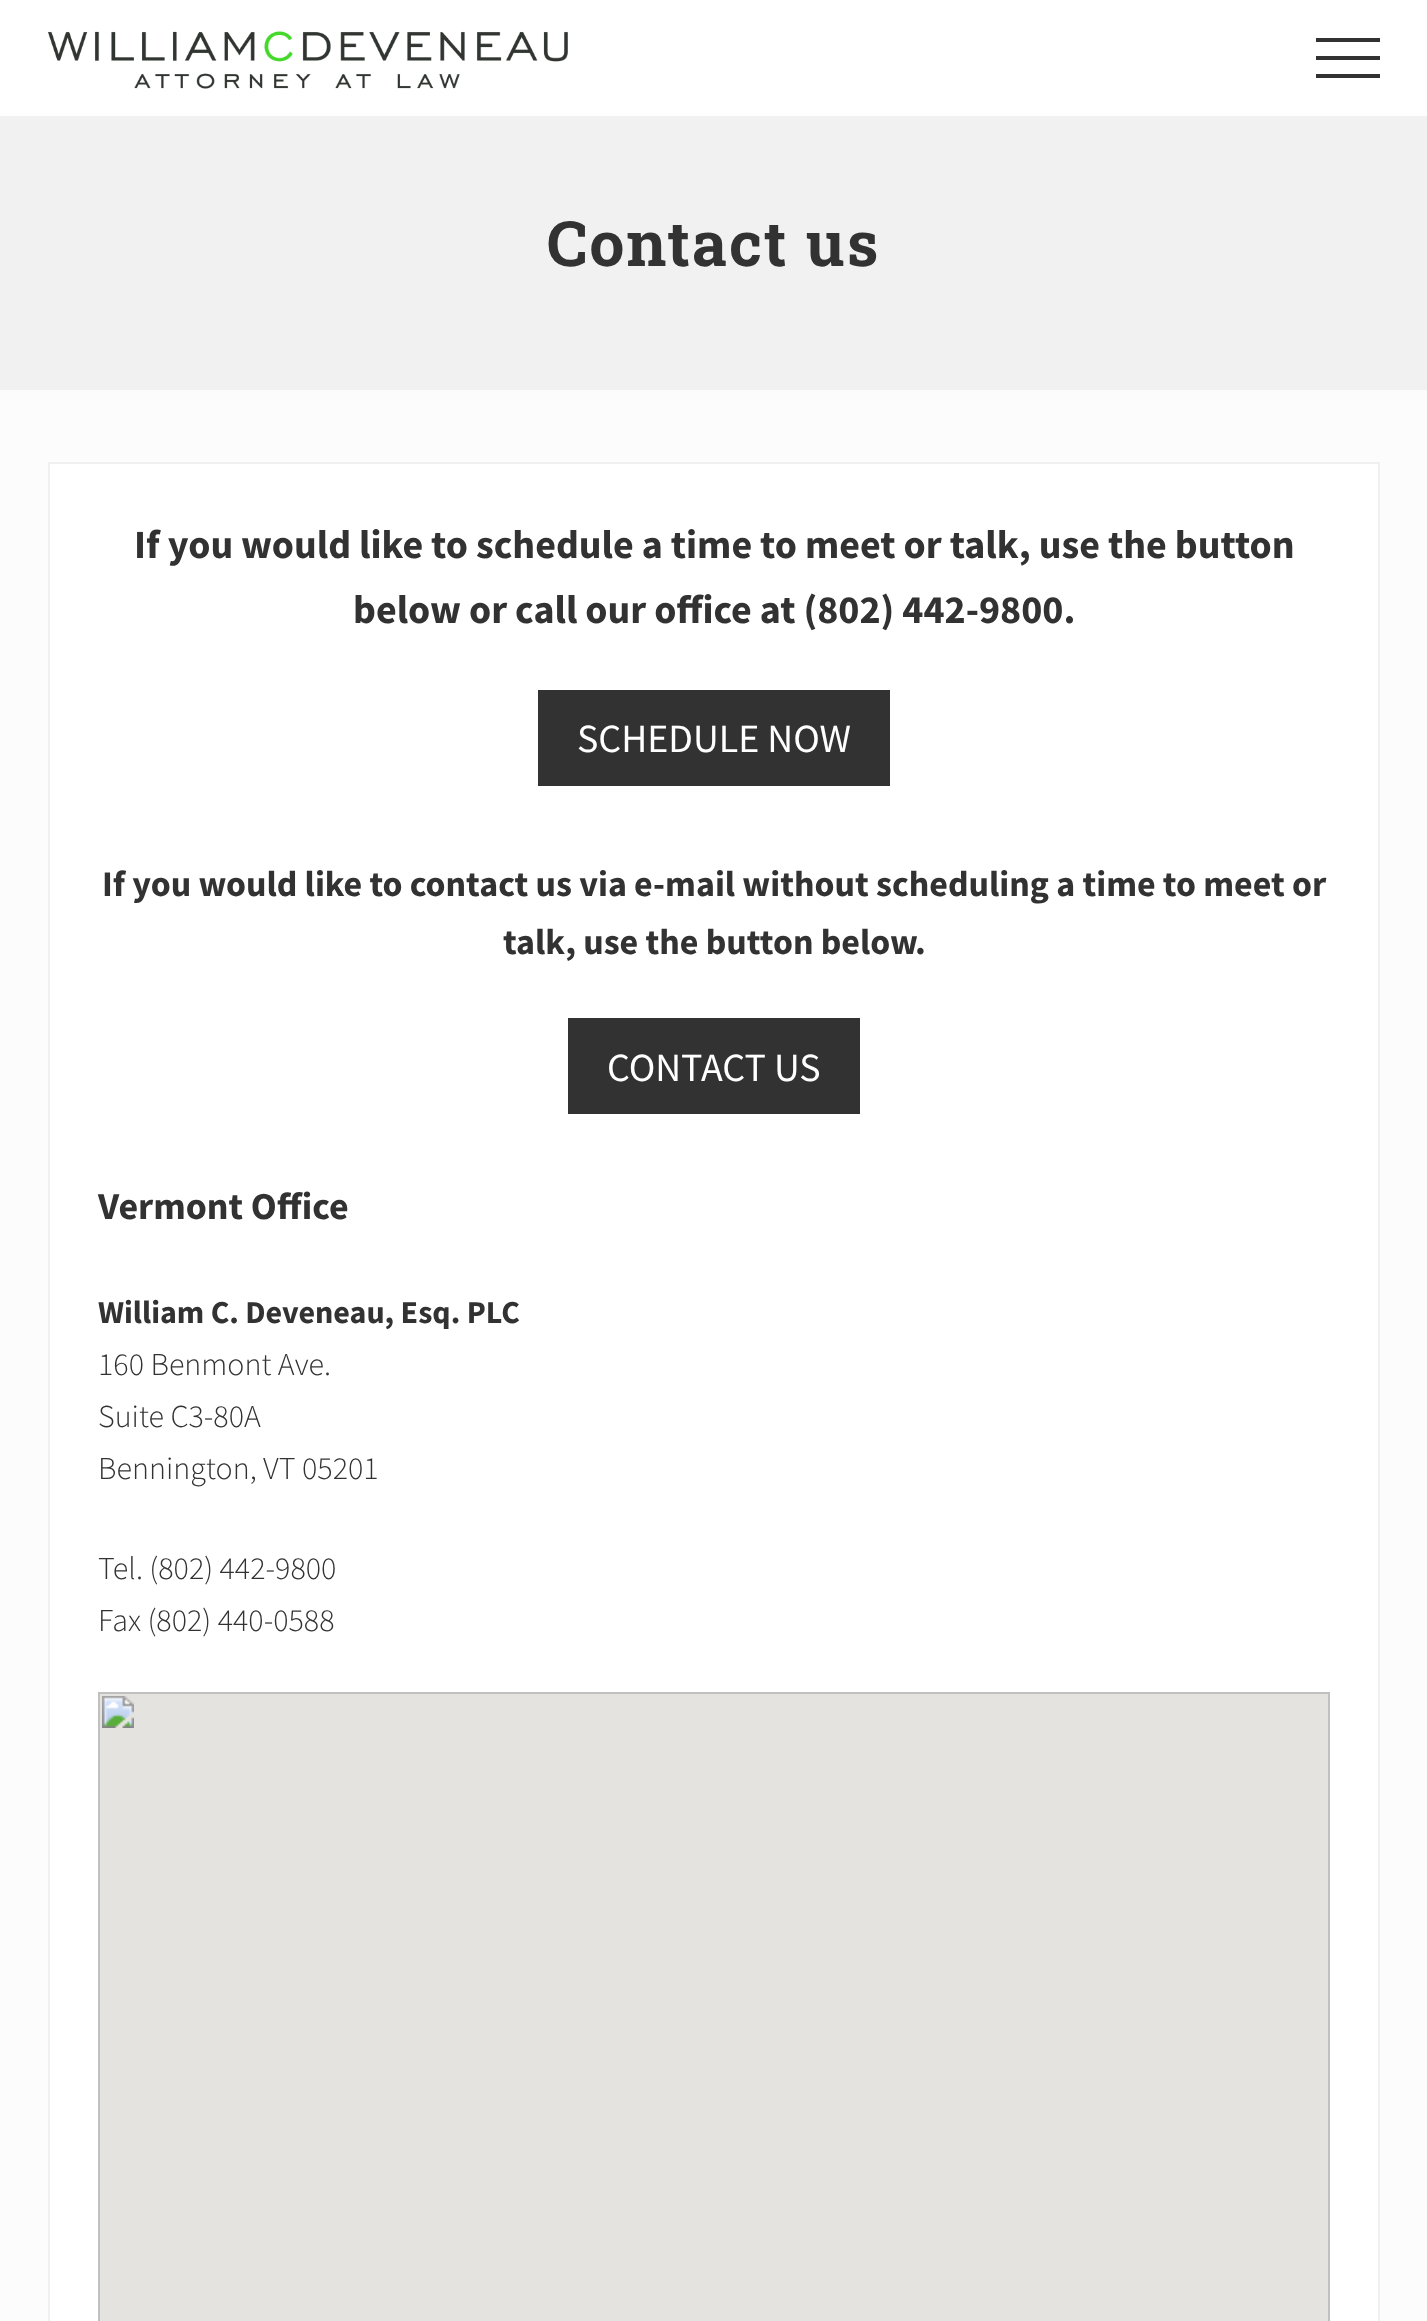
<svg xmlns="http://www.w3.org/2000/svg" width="1427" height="2321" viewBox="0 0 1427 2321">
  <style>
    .t1 { font: bold 62.5px Roboto Slab; letter-spacing: 2px; fill: #323232; }
    .t2 { font: bold 40px Source Sans Pro; fill: #323232; }
    .t3 { font: 40px Source Sans Pro; fill: #fff; }
    .t4 { font: bold 36px Source Sans Pro; fill: #323232; }
    .t5 { font: bold 38px Source Sans Pro; fill: #323232; }
    .t6 { font: bold 32px Source Sans Pro; fill: #323232; }
    .t7 { font: 300 32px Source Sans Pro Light; fill: #323232; }
  </style>
  <rect width="100%" height="100%" fill="#fcfcfc"/>
  <rect x="0" y="0" width="1427" height="116" fill="#fff"/>
  <rect x="0" y="116" width="1427" height="2" fill="#f2f2f2"/>
  <image x="48" y="31" width="520" height="58" href="images/1.png"/>
  <rect x="1316" y="56" width="64" height="4" fill="#323232"/>
  <rect x="1316" y="38" width="64" height="4" fill="#323232"/>
  <rect x="1316" y="74" width="64" height="4" fill="#323232"/>
  <rect x="0" y="118" width="1427" height="272" fill="#f1f1f1"/>
  <text x="547" y="266" class="t1">Contact us</text>
  <rect x="49" y="463" width="1330" height="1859" fill="#fff" stroke="#f0f0f0" stroke-width="2"/>
  <text x="134" y="558" class="t2">If you would like to schedule a time to meet or talk, use the button</text>
  <text x="353" y="623" class="t2">below or call our office at (802) 442-9800.</text>
  <rect x="538" y="690" width="352" height="96" fill="#323232"/>
  <text x="577" y="752" class="t3">SCHEDULE NOW</text>
  <text x="102" y="896" class="t4">If you would like to contact us via e-mail without scheduling a time to meet or</text>
  <text x="503" y="954" class="t4">talk, use the button below.</text>
  <rect x="568" y="1018" width="292" height="96" fill="#323232"/>
  <text x="607" y="1081" class="t3">CONTACT US</text>
  <text x="98" y="1219" class="t5">Vermont Office</text>
  <text x="98" y="1323" class="t6">William C. Deveneau, Esq. PLC</text>
  <text x="98" y="1375" class="t7">160 Benmont Ave.</text>
  <text x="98" y="1427" class="t7">Suite C3-80A</text>
  <text x="98" y="1479" class="t7">Bennington, VT 05201</text>
  <text x="98" y="1579" class="t7">Tel. (802) 442-9800</text>
  <text x="98" y="1631" class="t7">Fax (802) 440-0588</text>
  <image x="98" y="1692" width="1232" height="629" href="images/2.png"/>
</svg>
